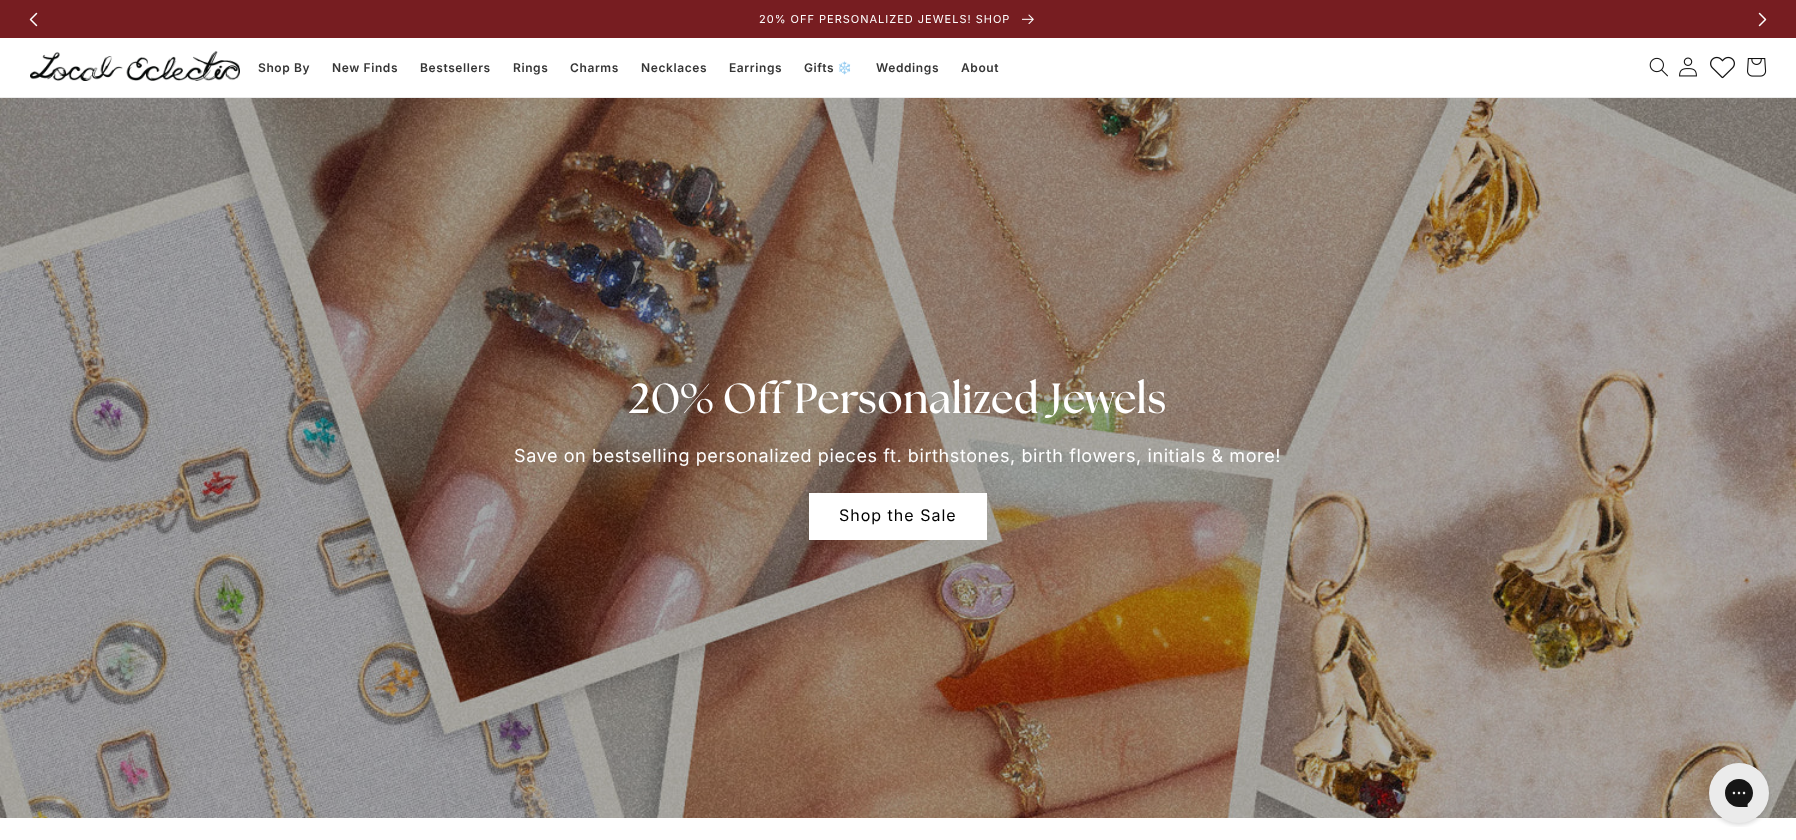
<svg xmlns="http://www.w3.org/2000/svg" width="1796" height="840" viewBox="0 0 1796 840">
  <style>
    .t1 { font: 11px Inter; letter-spacing: 1px; fill: #fff; }
    .t2 { font: 600 12px Inter; letter-spacing: 0.6px; fill: #363636; }
    .t3 { font: bold 12px Noto Color Emoji; letter-spacing: 0.6px; fill: #363636; }
    .t4 { font: bold 42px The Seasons; letter-spacing: 0.6px; fill: #fff; }
    .t5 { font: 18px Inter; letter-spacing: 0.6px; fill: #fff; }
    .t6 { font: 16px Inter; letter-spacing: 1px; fill: #000; }
  </style>
  <rect width="100%" height="100%" fill="#fff"/>
  <rect x="0" y="0" width="1796" height="38" fill="#771d21"/>
  <image x="29" y="12" width="9" height="15" href="images/1.png"/>
  <image x="1758" y="12" width="9" height="15" href="images/2.png"/>
  <text x="759" y="23" class="t1">20% OFF PERSONALIZED JEWELS! SHOP</text>
  <image x="1022" y="14" width="12" height="10" href="images/3.png"/>
  <rect x="0" y="97" width="1796" height="1" fill="#ececec"/>
  <image x="30" y="51" width="210" height="30" href="images/4.png"/>
  <text x="258" y="72" class="t2">Shop By</text>
  <text x="332" y="72" class="t2">New Finds</text>
  <text x="420" y="72" class="t2">Bestsellers</text>
  <text x="513" y="72" class="t2">Rings</text>
  <text x="570" y="72" class="t2">Charms</text>
  <text x="641" y="72" class="t2">Necklaces</text>
  <text x="729" y="72" class="t2">Earrings</text>
  <text x="804" y="72" class="t2">Gifts</text>
  <text x="837" y="72" class="t3">❄️</text>
  <text x="876" y="72" class="t2">Weddings</text>
  <text x="961" y="72" class="t2">About</text>
  <image x="1649" y="57" width="19" height="20" href="images/5.png"/>
  <image x="1679" y="57" width="18" height="20" href="images/6.png"/>
  <image x="1710" y="56" width="25" height="23" href="images/7.png"/>
  <image x="1747" y="58" width="20" height="19" href="images/8.png"/>
  <image x="0" y="98" width="1796" height="720" href="images/9.png"/>
  <text x="629" y="413" class="t4">20% Off Personalized Jewels</text>
  <text x="514" y="462" class="t5">Save on bestselling personalized pieces ft. birthstones, birth flowers, initials &amp; more!</text>
  <rect x="809" y="493" width="178" height="47" fill="#fff"/>
  <text x="839" y="521" class="t6">Shop the Sale</text>
  <image x="1707" y="763" width="64" height="64" href="images/10.png"/>
</svg>
